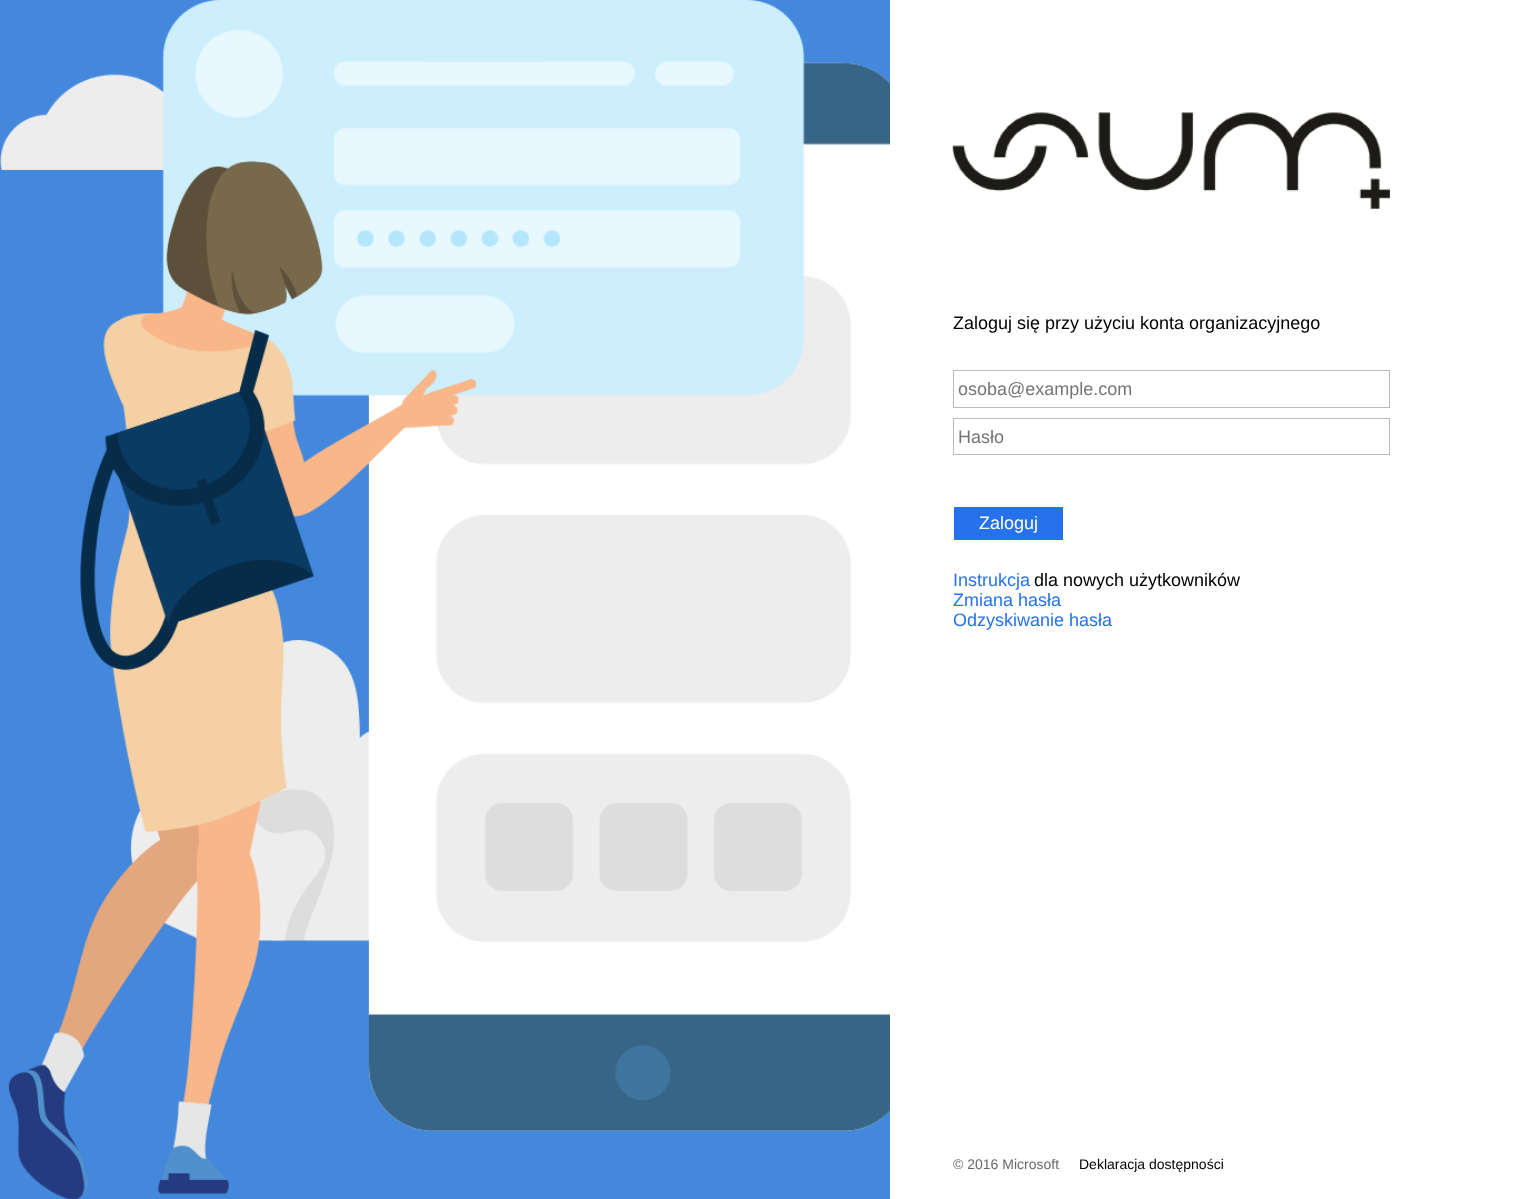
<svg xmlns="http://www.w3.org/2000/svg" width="1514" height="1199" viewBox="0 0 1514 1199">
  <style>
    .t1 { font: 18px Liberation Sans; fill: #000; }
    .t2 { font: 18px Liberation Sans; fill: #757575; }
    .t3 { font: 18px Liberation Sans; fill: #fff; }
    .t4 { font: 18px Liberation Sans; fill: #2672ec; }
    .t5 { font: 14px Liberation Sans; fill: #696969; }
    .t6 { font: 14px Liberation Sans; fill: #000; }
  </style>
  <rect width="100%" height="100%" fill="#48d"/>
  <image x="0" y="0" width="890" height="1199" href="images/1.png"/>
  <rect x="890" y="0" width="624" height="1199" fill="#fff"/>
  <image x="952" y="112" width="438" height="97" href="images/2.png"/>
  <text x="953" y="329" class="t1">Zaloguj się przy użyciu konta organizacyjnego</text>
  <rect x="953.5" y="370.5" width="436" height="37" fill="none" stroke="#bababa"/>
  <text x="958" y="395" class="t2">osoba@example.com</text>
  <rect x="953.5" y="418.5" width="436" height="36" fill="none" stroke="#bababa"/>
  <text x="958" y="443" class="t2">Hasło</text>
  <rect x="954" y="507" width="109" height="33" fill="#2672ec"/>
  <text x="979" y="529" class="t3">Zaloguj</text>
  <text x="953" y="586" class="t4">Instrukcja</text>
  <text x="1034" y="586" class="t1">dla nowych użytkowników</text>
  <text x="953" y="606" class="t4">Zmiana hasła</text>
  <text x="953" y="626" class="t4">Odzyskiwanie hasła</text>
  <text x="953" y="1169" class="t5">© 2016 Microsoft</text>
  <text x="1079" y="1169" class="t6">Deklaracja dostępności</text>
</svg>
